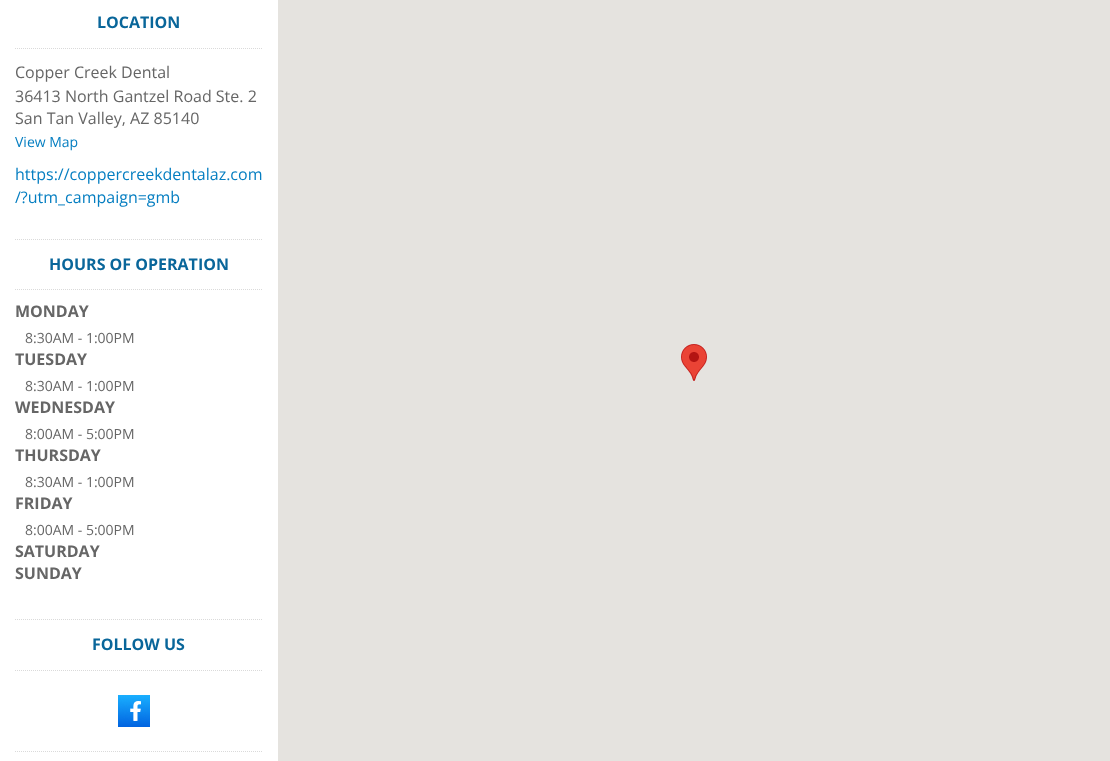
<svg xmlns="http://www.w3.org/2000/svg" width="1110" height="761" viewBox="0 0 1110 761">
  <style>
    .t1 { font: bold 16px Open Sans; fill: #09669a; }
    .t2 { font: 16px Open Sans; fill: #666; }
    .t3 { font: 14px Open Sans; fill: #057ec1; }
    .t4 { font: 16px Open Sans; fill: #057ec1; }
    .t5 { font: bold 16px Open Sans; fill: #666; }
    .t6 { font: 14px Open Sans; fill: #666; }
  </style>
  <rect width="100%" height="100%" fill="#fff"/>
  <path d="M15 48.5H263" fill="none" stroke="#dadada" stroke-dasharray="1 1"/>
  <text x="97" y="28" class="t1">LOCATION</text>
  <text x="15" y="78" class="t2">Copper Creek Dental</text>
  <text x="15" y="102" class="t2">36413 North Gantzel Road Ste. 2</text>
  <text x="15" y="124" class="t2">San Tan Valley, AZ 85140</text>
  <text x="15" y="147" class="t3">View Map</text>
  <text x="15" y="180" class="t4">https://coppercreekdentalaz.com</text>
  <text x="15" y="203" class="t4">/?utm_campaign=gmb</text>
  <path d="M15 239.5H263" fill="none" stroke="#dadada" stroke-dasharray="1 1"/>
  <path d="M15 289.5H263" fill="none" stroke="#dadada" stroke-dasharray="1 1"/>
  <text x="49" y="270" class="t1">HOURS OF OPERATION</text>
  <text x="15" y="317" class="t5">MONDAY</text>
  <text x="25" y="343" class="t6">8:30AM - 1:00PM</text>
  <text x="15" y="365" class="t5">TUESDAY</text>
  <text x="25" y="391" class="t6">8:30AM - 1:00PM</text>
  <text x="15" y="413" class="t5">WEDNESDAY</text>
  <text x="25" y="439" class="t6">8:00AM - 5:00PM</text>
  <text x="15" y="461" class="t5">THURSDAY</text>
  <text x="25" y="487" class="t6">8:30AM - 1:00PM</text>
  <text x="15" y="509" class="t5">FRIDAY</text>
  <text x="25" y="535" class="t6">8:00AM - 5:00PM</text>
  <text x="15" y="557" class="t5">SATURDAY</text>
  <text x="15" y="579" class="t5">SUNDAY</text>
  <path d="M15 619.5H263" fill="none" stroke="#dadada" stroke-dasharray="1 1"/>
  <path d="M15 670.5H263" fill="none" stroke="#dadada" stroke-dasharray="1 1"/>
  <text x="92" y="650" class="t1">FOLLOW US</text>
  <image x="118" y="695" width="32" height="32" href="images/1.png"/>
  <path d="M15 751.5H263" fill="none" stroke="#dadada" stroke-dasharray="1 1"/>
  <rect x="278" y="0" width="832" height="761" fill="#e5e3df"/>
  <image x="681" y="344" width="26" height="37" href="images/2.png"/>
</svg>
